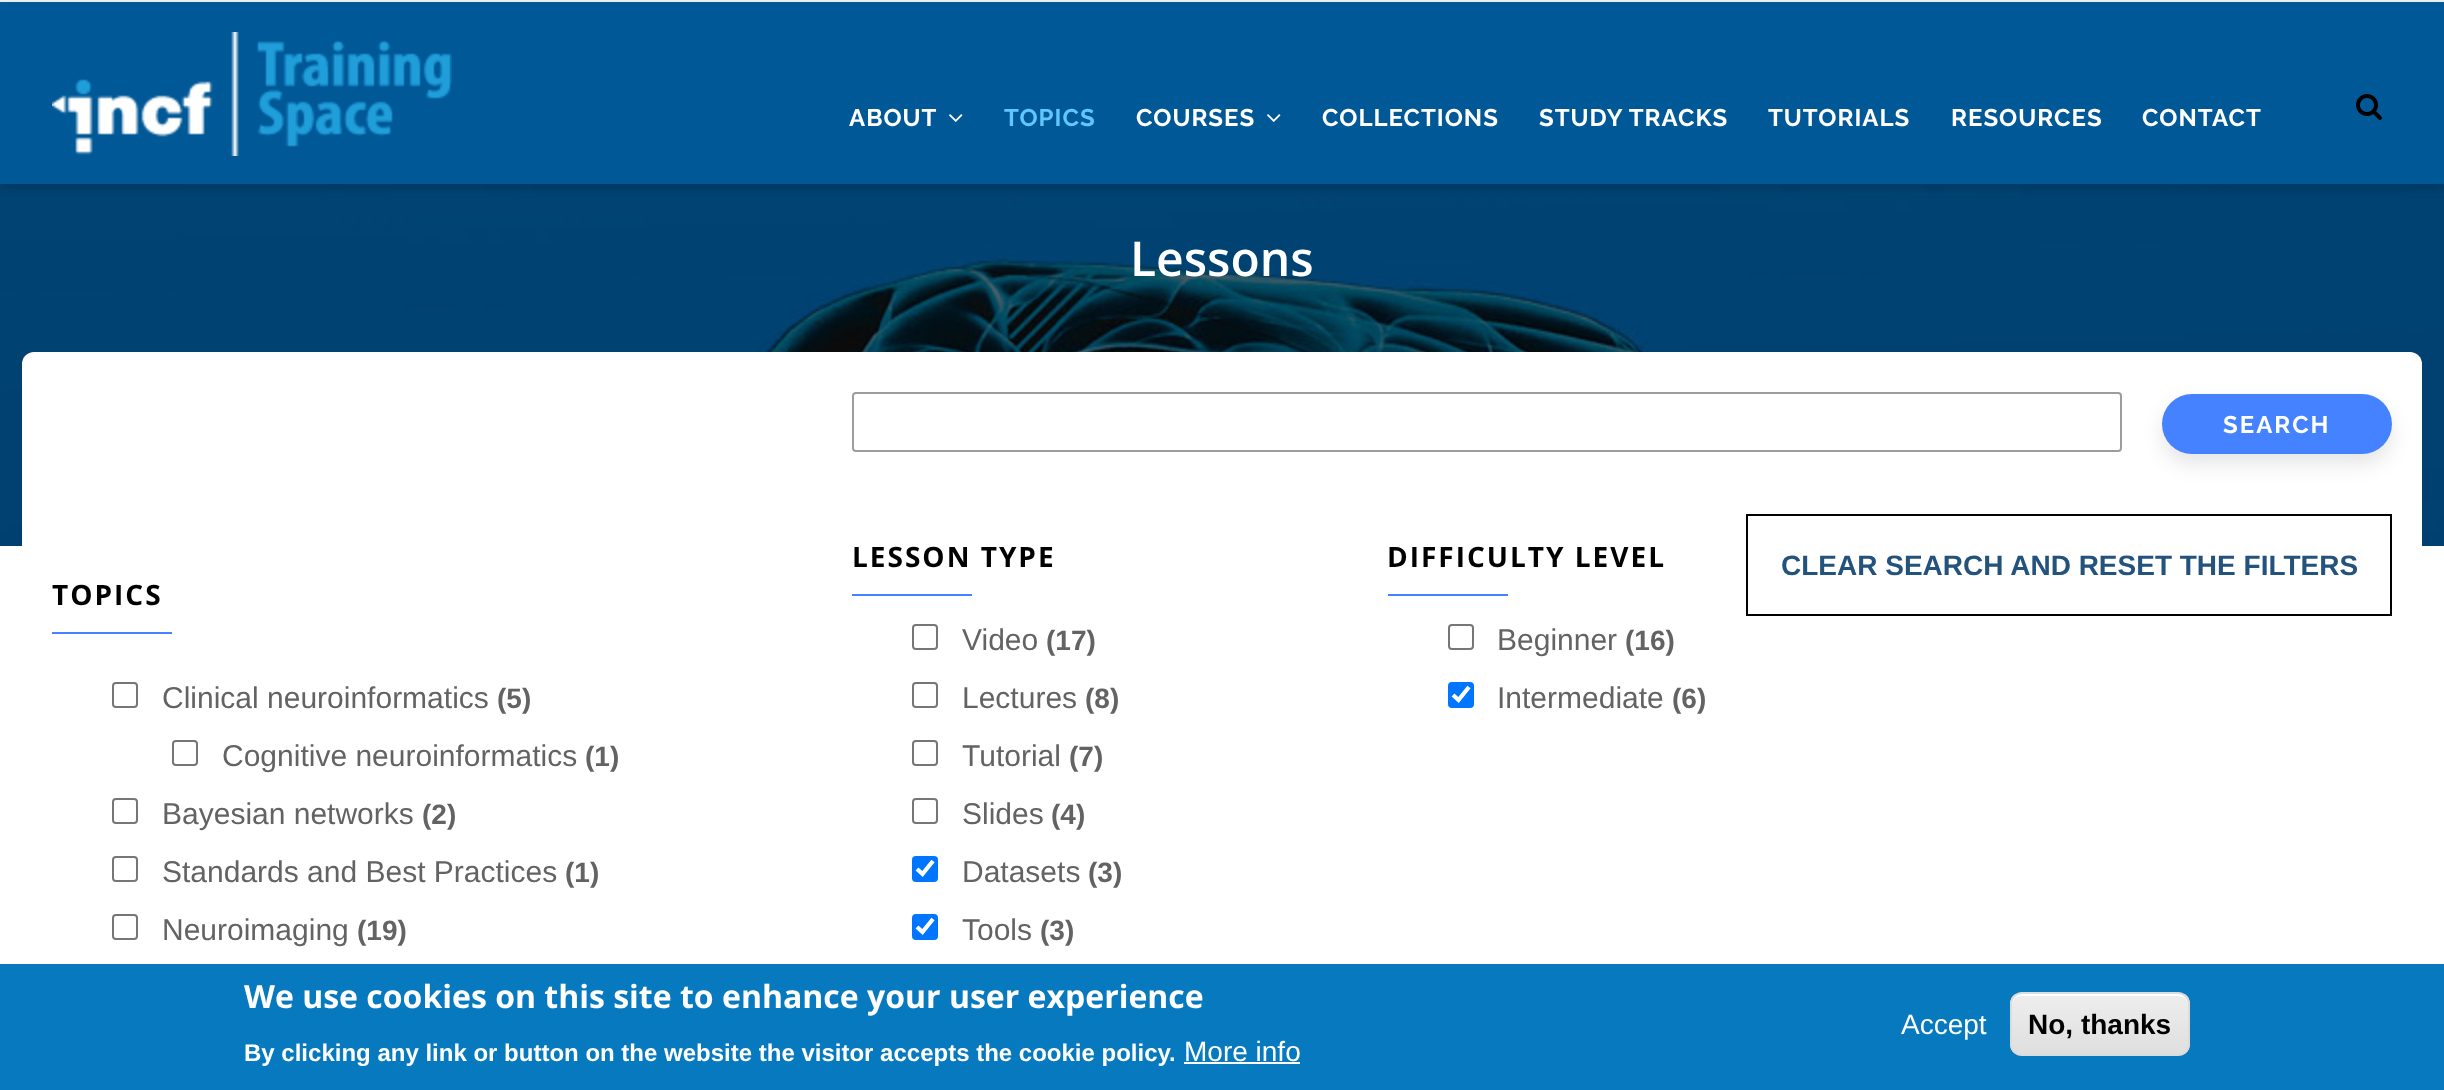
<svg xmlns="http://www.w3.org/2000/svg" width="2444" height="1090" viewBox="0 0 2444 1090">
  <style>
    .t1 { font: bold 24px Raleway; letter-spacing: 1px; fill: #fff; }
    .t2 { font: bold 24px Raleway; letter-spacing: 1px; fill: #60c6fb; }
    .t3 { font: 600 48px Open Sans; fill: #fff; }
    .t4 { font: bold 28px Open Sans; letter-spacing: 2px; fill: #000; }
    .t5 { font: 30px Liberation Sans; fill: #636363; }
    .t6 { font: bold 28px Liberation Sans; fill: #636363; }
    .t7 { font: bold 24px Raleway; letter-spacing: 2px; fill: #fff; }
    .t8 { font: bold 28px Liberation Sans; fill: #23527c; }
    .t9 { font: bold 32px Open Sans; fill: #fff; }
    .t10 { font: bold 24px Liberation Sans; fill: #fff; }
    .t11 { font: 28px Liberation Sans; fill: #fff; }
    .t12 { font: bold 28px Liberation Sans; fill: #000; }
  </style>
  <defs>
    <clipPath id="clip1"><rect x="2010" y="992" width="180" height="64" rx="12"/></clipPath>
    <linearGradient id="g1" gradientUnits="userSpaceOnUse" x1="2100" y1="994" x2="2100" y2="1054"><stop offset="0.05" stop-color="#ededed"/><stop offset="1" stop-color="#dfdfdf"/></linearGradient>
  </defs>
  <rect width="100%" height="100%" fill="#efefef"/>
  <rect x="0" y="546" width="2444" height="418" fill="#fff"/>
  <image x="0" y="184" width="2444" height="362" href="images/4.png"/>
  <rect x="0" y="8" width="2444" height="182" fill="#00000024" filter="blur(4px)"/>
  <rect x="0" y="2" width="2444" height="182" fill="#005897"/>
  <image x="52" y="32" width="400" height="124" href="images/1.png"/>
  <text x="849" y="126" class="t1">ABOUT</text>
  <image x="949" y="114" width="14" height="8" href="images/2.png"/>
  <text x="1004" y="126" class="t2">TOPICS</text>
  <text x="1136" y="126" class="t1">COURSES</text>
  <image x="1267" y="114" width="14" height="8" href="images/2.png"/>
  <text x="1322" y="126" class="t1">COLLECTIONS</text>
  <text x="1539" y="126" class="t1">STUDY TRACKS</text>
  <text x="1768" y="126" class="t1">TUTORIALS</text>
  <text x="1951" y="126" class="t1">RESOURCES</text>
  <text x="2142" y="126" class="t1">CONTACT</text>
  <image x="2356" y="94" width="26" height="26" href="images/3.png"/>
  <text x="1130" y="276" class="t3">Lessons</text>
  <rect x="22" y="352" width="2400" height="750" rx="12" fill="#fff"/>
  <text x="52" y="605" class="t4">TOPICS</text>
  <rect x="52" y="632" width="120" height="2" fill="#4582ff"/>
  <rect x="113" y="683" width="24" height="24" rx="3" fill="none" stroke="#767676" stroke-width="2"/>
  <text x="162" y="708" class="t5">Clinical neuroinformatics</text>
  <text x="497" y="708" class="t6">(5)</text>
  <rect x="173" y="741" width="24" height="24" rx="3" fill="none" stroke="#767676" stroke-width="2"/>
  <text x="222" y="766" class="t5">Cognitive neuroinformatics</text>
  <text x="585" y="766" class="t6">(1)</text>
  <rect x="113" y="799" width="24" height="24" rx="3" fill="none" stroke="#767676" stroke-width="2"/>
  <text x="162" y="824" class="t5">Bayesian networks</text>
  <text x="422" y="824" class="t6">(2)</text>
  <rect x="113" y="857" width="24" height="24" rx="3" fill="none" stroke="#767676" stroke-width="2"/>
  <text x="162" y="882" class="t5">Standards and Best Practices</text>
  <text x="565" y="882" class="t6">(1)</text>
  <rect x="113" y="915" width="24" height="24" rx="3" fill="none" stroke="#767676" stroke-width="2"/>
  <text x="162" y="940" class="t5">Neuroimaging</text>
  <text x="357" y="940" class="t6">(19)</text>
  <rect x="853" y="393" width="1268" height="58" rx="3" fill="none" stroke="#9d9d9d" stroke-width="2"/>
  <rect x="2162" y="404" width="230" height="60" rx="30" fill="#0000001a" filter="blur(10px)"/>
  <rect x="2162" y="394" width="230" height="60" rx="30" fill="#4582ff"/>
  <text x="2223" y="433" class="t7">SEARCH</text>
  <text x="852" y="567" class="t4">LESSON TYPE</text>
  <rect x="852" y="594" width="120" height="2" fill="#4582ff"/>
  <rect x="913" y="625" width="24" height="24" rx="3" fill="none" stroke="#767676" stroke-width="2"/>
  <text x="962" y="650" class="t5">Video</text>
  <text x="1046" y="650" class="t6">(17)</text>
  <rect x="913" y="683" width="24" height="24" rx="3" fill="none" stroke="#767676" stroke-width="2"/>
  <text x="962" y="708" class="t5">Lectures</text>
  <text x="1085" y="708" class="t6">(8)</text>
  <rect x="913" y="741" width="24" height="24" rx="3" fill="none" stroke="#767676" stroke-width="2"/>
  <text x="962" y="766" class="t5">Tutorial</text>
  <text x="1069" y="766" class="t6">(7)</text>
  <rect x="913" y="799" width="24" height="24" rx="3" fill="none" stroke="#767676" stroke-width="2"/>
  <text x="962" y="824" class="t5">Slides</text>
  <text x="1051" y="824" class="t6">(4)</text>
  <rect x="912" y="856" width="26" height="26" rx="4" fill="#0075ff"/>
  <path d="M917 869L922.5 874L933 861" fill="none" stroke="#fff" stroke-width="4.2"/>
  <text x="962" y="882" class="t5">Datasets</text>
  <text x="1088" y="882" class="t6">(3)</text>
  <rect x="912" y="914" width="26" height="26" rx="4" fill="#0075ff"/>
  <path d="M917 927L922.5 932L933 919" fill="none" stroke="#fff" stroke-width="4.2"/>
  <text x="962" y="940" class="t5">Tools</text>
  <text x="1040" y="940" class="t6">(3)</text>
  <text x="1387" y="567" class="t4">DIFFICULTY LEVEL</text>
  <rect x="1388" y="594" width="120" height="2" fill="#4582ff"/>
  <rect x="1449" y="625" width="24" height="24" rx="3" fill="none" stroke="#767676" stroke-width="2"/>
  <text x="1497" y="650" class="t5">Beginner</text>
  <text x="1625" y="650" class="t6">(16)</text>
  <rect x="1448" y="682" width="26" height="26" rx="4" fill="#0075ff"/>
  <path d="M1453 695L1458.5 700L1469 687" fill="none" stroke="#fff" stroke-width="4.2"/>
  <text x="1497" y="708" class="t5">Intermediate</text>
  <text x="1672" y="708" class="t6">(6)</text>
  <rect x="1747" y="515" width="644" height="100" fill="none" stroke="#000" stroke-width="2"/>
  <text x="1781" y="575" class="t8">CLEAR SEARCH AND RESET THE FILTERS</text>
  <rect x="0" y="964" width="2444" height="126" fill="#0779bf"/>
  <text x="244" y="1008" class="t9">We use cookies on this site to enhance your user experience</text>
  <text x="244" y="1061" class="t10">By clicking any link or button on the website the visitor accepts the cookie policy.</text>
  <text x="1184" y="1061" class="t11">More info</text>
  <rect x="1184" y="1062" width="116" height="2" fill="#fff"/>
  <text x="1901" y="1034" class="t11">Accept</text>
  <g clip-path="url(#clip1)">
    <rect x="2010" y="994" width="180" height="60" fill="url(#g1)"/>
  </g>
  <path d="M2022 996H2178C2184 996 2188 1000 2188 1006V1004C2188 998 2184 994 2178 994H2022C2016 994 2012 998 2012 1004V1006C2012 1000 2016 996 2022 996Z" fill="#fff"/>
  <rect x="2011" y="993" width="178" height="62" rx="11" fill="none" stroke="#dcdcdc" stroke-width="2"/>
  <text x="2028" y="1034" class="t12">No, thanks</text>
</svg>
